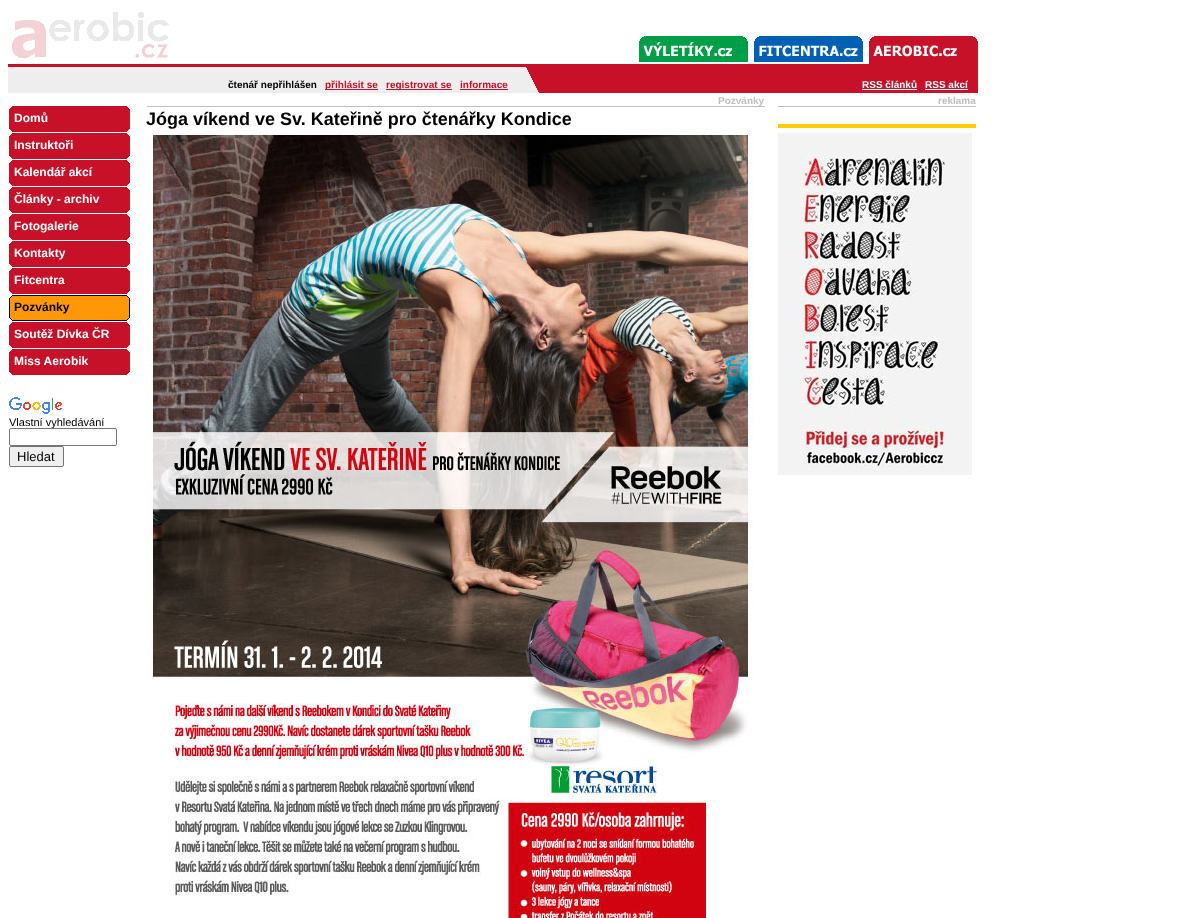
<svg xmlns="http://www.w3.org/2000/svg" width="1181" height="918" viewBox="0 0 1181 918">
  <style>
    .t1 { font: bold 10px Liberation Sans; fill: #000; }
    .t2 { font: bold 10px Liberation Sans; fill: #c61128; }
    .t3 { font: bold 10px Liberation Sans; fill: #fff; }
    .t4 { font: bold 10px Liberation Sans; fill: #c0c0c0; }
    .t5 { font: bold 18px Liberation Sans; fill: #000; }
    .t6 { font: bold 12px Liberation Sans; fill: #fff; }
    .t7 { font: bold 12px Liberation Sans; fill: #000; }
    .t8 { font: 11px Liberation Sans; fill: #000; }
    .t9 { font: 13px Liberation Sans; fill: #000; }
  </style>
  <rect width="100%" height="100%" fill="#fff"/>
  <image x="12" y="12" width="157" height="46" href="images/1.png"/>
  <image x="639" y="36" width="109" height="26" href="images/2.png"/>
  <image x="754" y="36" width="109" height="26" href="images/3.png"/>
  <image x="869" y="36" width="109" height="28" href="images/4.png"/>
  <image x="8" y="64" width="970" height="29" href="images/5.png"/>
  <text x="228" y="88" class="t1">čtenář nepřihlášen</text>
  <rect x="325" y="89" width="53" height="1" fill="#c61128"/>
  <text x="325" y="88" class="t2">přihlásit se</text>
  <rect x="386" y="89" width="66" height="1" fill="#c61128"/>
  <text x="386" y="88" class="t2">registrovat se</text>
  <text x="460" y="88" class="t2">informace</text>
  <rect x="460" y="89" width="48" height="1" fill="#c61128"/>
  <text x="862" y="88" class="t3">RSS článků</text>
  <rect x="862" y="89" width="55" height="1" fill="#fff"/>
  <text x="925" y="88" class="t3">RSS akcí</text>
  <rect x="925" y="89" width="43" height="1" fill="#fff"/>
  <text x="718" y="104" class="t4">Pozvánky</text>
  <rect x="147" y="106" width="618" height="1" fill="#c0c0c0"/>
  <text x="146" y="125" class="t5">Jóga víkend ve Sv. Kateřině pro čtenářky Kondice</text>
  <image x="146" y="135" width="608" height="783" href="images/6.png"/>
  <text x="938" y="104" class="t4">reklama</text>
  <rect x="778" y="106" width="198" height="1" fill="#c0c0c0"/>
  <rect x="778" y="124" width="198" height="4" fill="#fc0"/>
  <image x="778" y="133" width="194" height="342" href="images/7.png"/>
  <image x="9" y="106" width="121" height="26" href="images/8.png"/>
  <text x="14" y="122" class="t6">Domů</text>
  <image x="9" y="133" width="121" height="26" href="images/8.png"/>
  <text x="14" y="149" class="t6">Instruktoři</text>
  <image x="9" y="160" width="121" height="26" href="images/8.png"/>
  <text x="14" y="176" class="t6">Kalendář akcí</text>
  <image x="9" y="187" width="121" height="26" href="images/8.png"/>
  <text x="14" y="203" class="t6">Články - archiv</text>
  <image x="9" y="214" width="121" height="26" href="images/8.png"/>
  <text x="14" y="230" class="t6">Fotogalerie</text>
  <image x="9" y="241" width="121" height="26" href="images/8.png"/>
  <text x="14" y="257" class="t6">Kontakty</text>
  <image x="9" y="268" width="121" height="26" href="images/8.png"/>
  <text x="14" y="284" class="t6">Fitcentra</text>
  <image x="9" y="295" width="121" height="26" href="images/9.png"/>
  <text x="14" y="311" class="t7">Pozvánky</text>
  <image x="9" y="322" width="121" height="26" href="images/8.png"/>
  <text x="14" y="338" class="t6">Soutěž Dívka ČR</text>
  <image x="9" y="349" width="121" height="26" href="images/8.png"/>
  <text x="14" y="365" class="t6">Miss Aerobik</text>
  <image x="9" y="397" width="53" height="17" href="images/10.png"/>
  <text x="9" y="426" class="t8">Vlastní vyhledávání</text>
  <rect x="9.5" y="428.5" width="107" height="17" rx="1.5" fill="#fff" stroke="#767676"/>
  <rect x="9.5" y="446.5" width="54" height="20" rx="1.5" fill="#efefef" stroke="#767676"/>
  <text x="17" y="461" class="t9">Hledat</text>
</svg>
